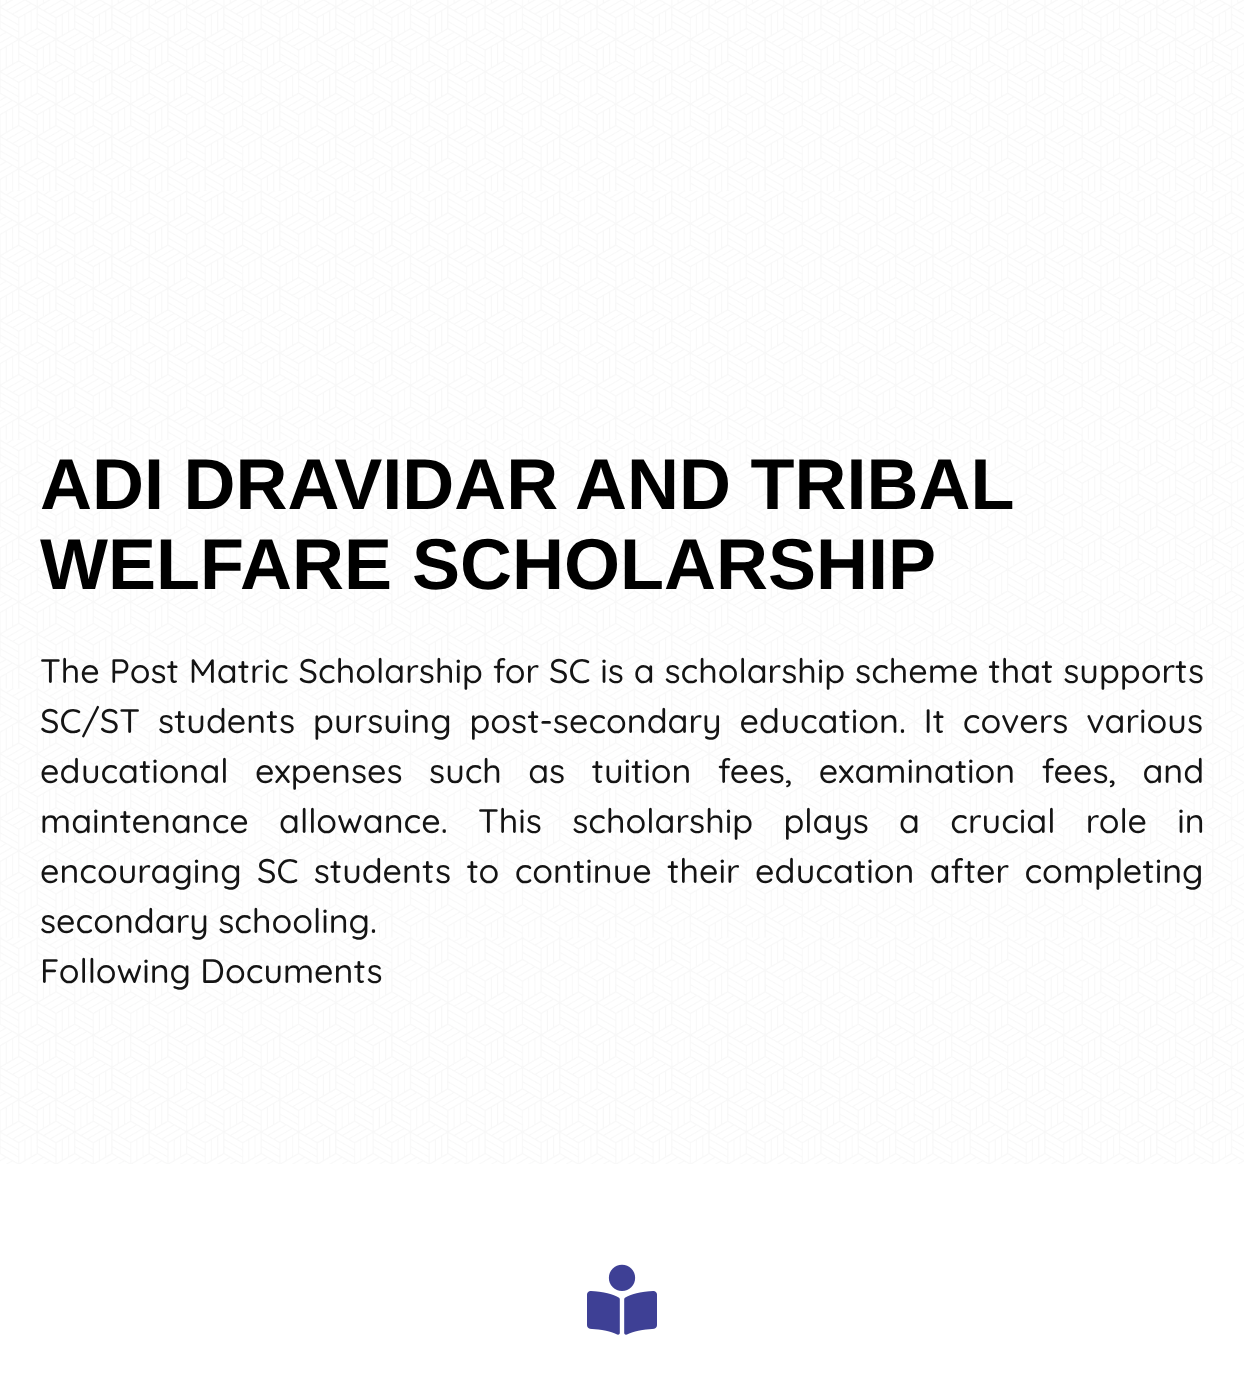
<svg xmlns="http://www.w3.org/2000/svg" width="1244" height="1395" viewBox="0 0 1244 1395">
  <style>
    .t1 { font: bold 72px Liberation Sans; fill: #000; }
    .t2 { font: 500 34px Quicksand; fill: #141414; }
  </style>
  <rect width="100%" height="100%" fill="#fff"/>
  <image x="0" y="0" width="1244" height="1164" href="images/1.png"/>
  <text x="40" y="509" word-spacing="-0.5" class="t1">ADI DRAVIDAR AND TRIBAL</text>
  <text x="40" y="589" class="t1">WELFARE SCHOLARSHIP</text>
  <text x="40" y="683" word-spacing="0.5" class="t2">The Post Matric Scholarship for SC is a scholarship scheme that supports</text>
  <text x="40" y="733" word-spacing="8.5" class="t2">SC/ST students pursuing post-secondary education. It covers various</text>
  <text x="40" y="783" word-spacing="17" class="t2">educational expenses such as tuition fees, examination fees, and</text>
  <text x="40" y="833" word-spacing="21" class="t2">maintenance allowance. This scholarship plays a crucial role in</text>
  <text x="40" y="883" word-spacing="6" class="t2">encouraging SC students to continue their education after completing</text>
  <text x="40" y="933" class="t2">secondary schooling.</text>
  <text x="40" y="983" class="t2">Following Documents</text>
  <image x="587" y="1264" width="70" height="71" href="images/2.png"/>
</svg>
